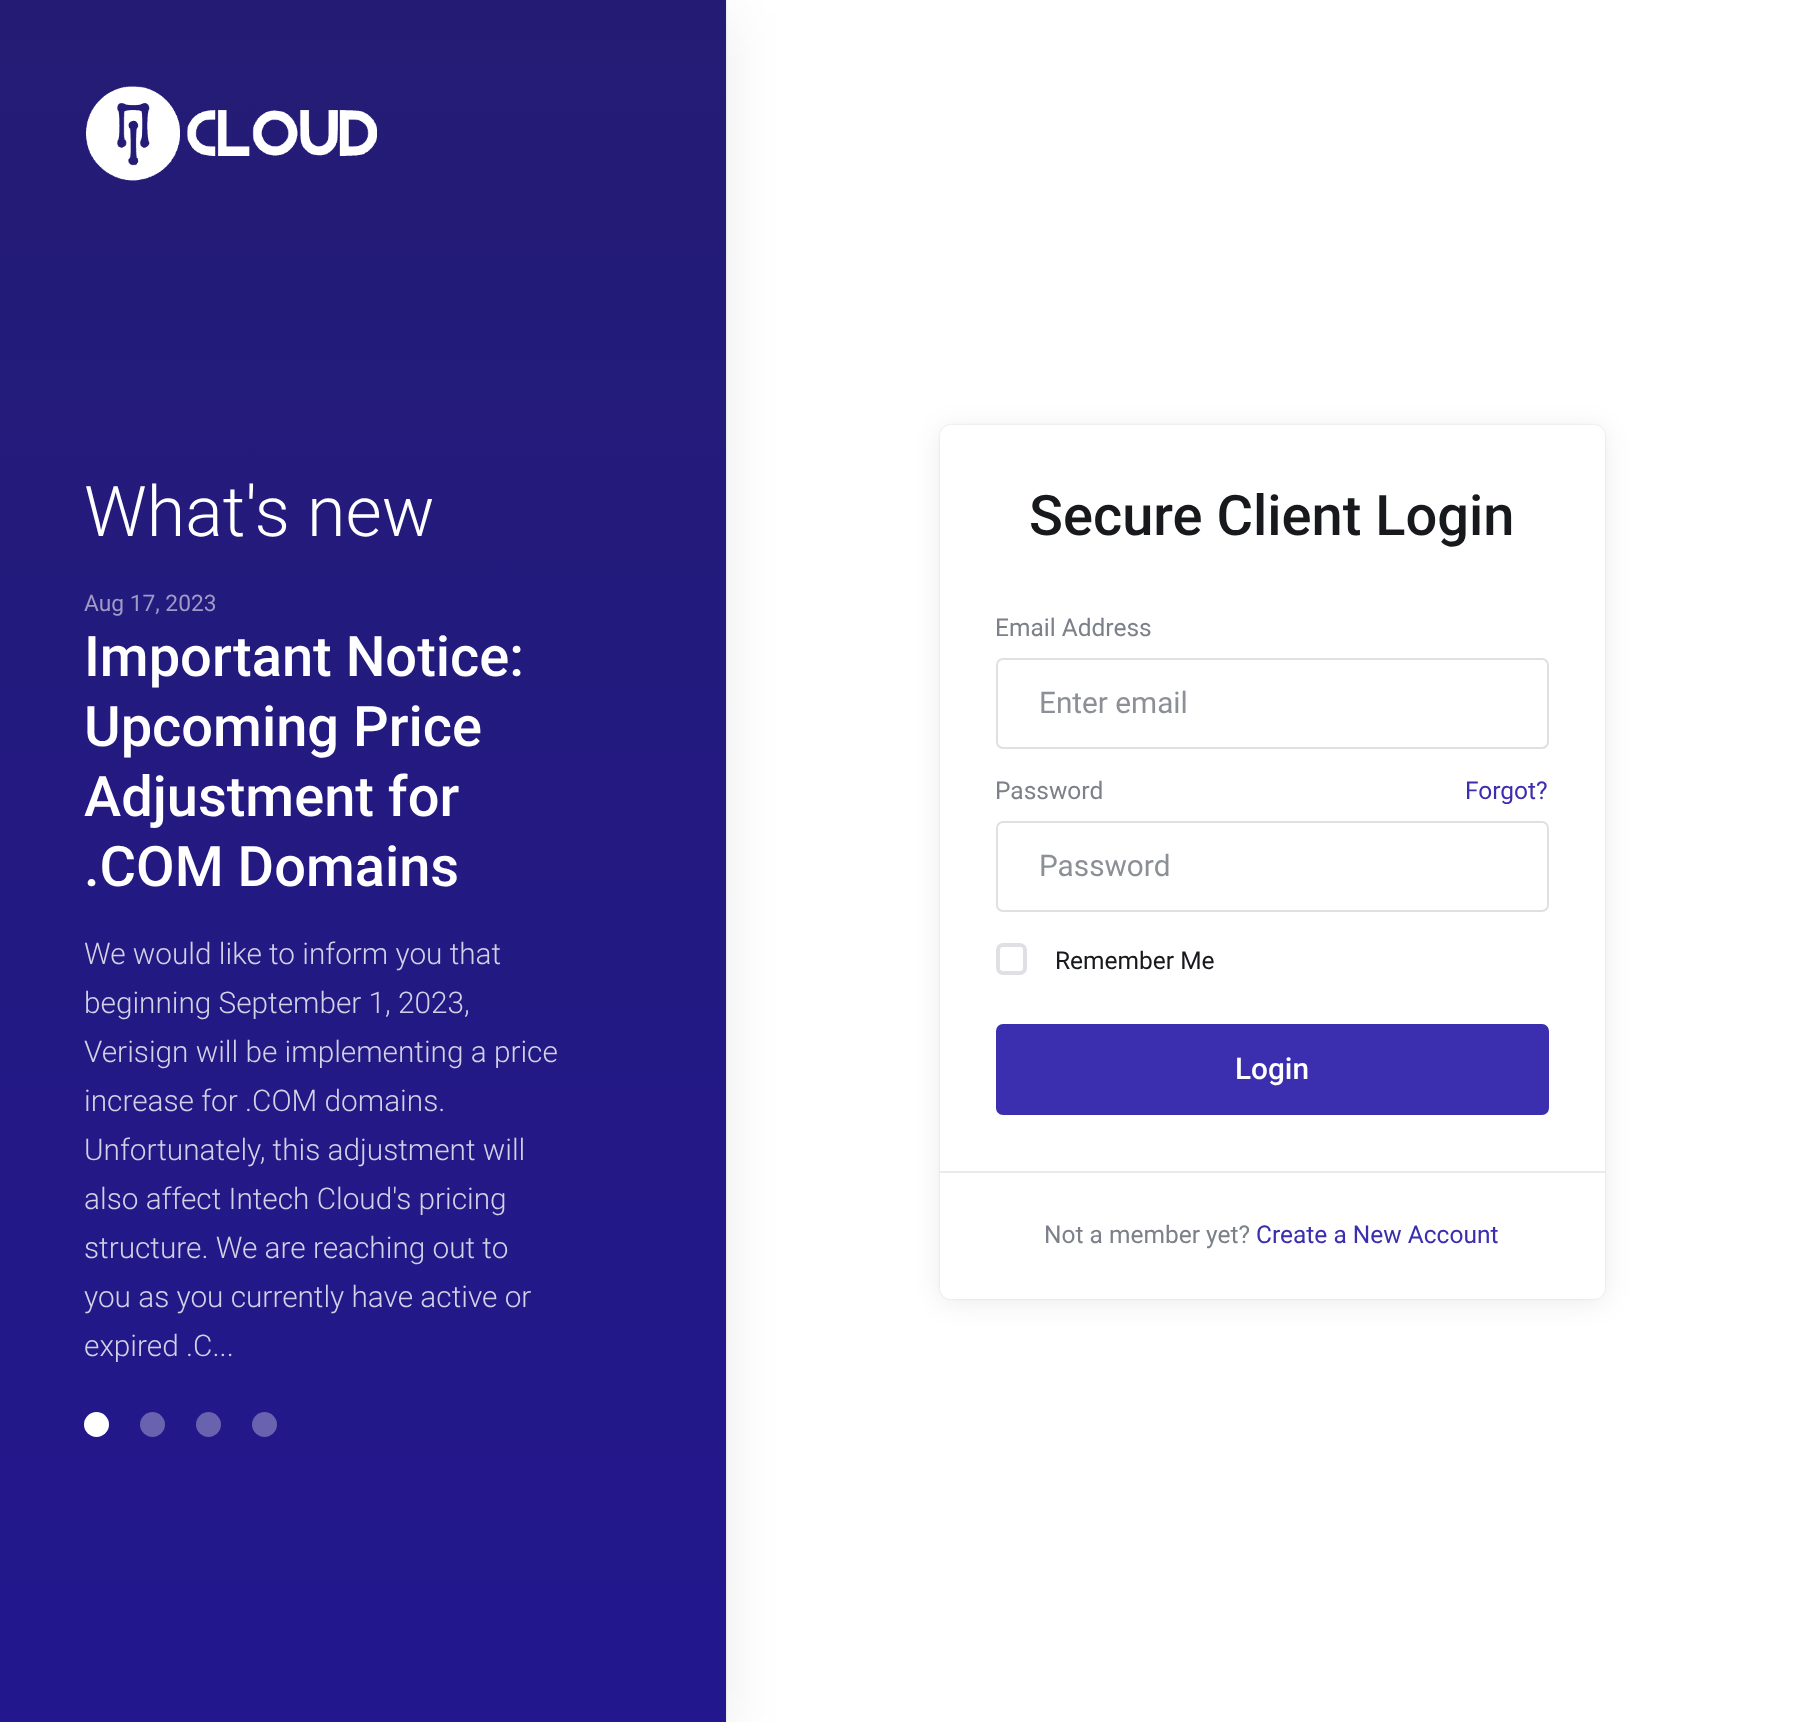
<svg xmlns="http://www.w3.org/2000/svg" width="1815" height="1722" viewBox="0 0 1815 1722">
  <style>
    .t1 { font: 300 70px Roboto; fill: #fff; }
    .t2 { font: 22.75px Roboto; fill: #9f9ac6; }
    .t3 { font: 500 56px Roboto; fill: #fff; }
    .t4 { font: 300 29.75px Roboto; fill: #d3d1e6; }
    .t5 { font: 500 56px Roboto; fill: #17191c; }
    .t6 { font: 24.5px Roboto; fill: #7c8088; }
    .t7 { font: 29.75px Roboto; fill: #8c8f96; }
    .t8 { font: 24.5px Roboto; fill: #3b2eaf; }
    .t9 { font: 24.5px Roboto; fill: #17191c; }
    .t10 { font: 500 29.75px Roboto; fill: #fff; }
  </style>
  <defs>
    <linearGradient id="g1" gradientUnits="userSpaceOnUse" x1="363" y1="1722" x2="363" y2="0"><stop offset="0" stop-color="#23178f"/><stop offset="1" stop-color="#241c74"/></linearGradient>
  </defs>
  <rect width="100%" height="100%" fill="#fff"/>
  <rect x="0" y="14" width="726" height="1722" fill="#00000014" filter="blur(28px)"/>
  <rect x="0" y="0" width="726" height="1722" fill="#0000001f" filter="blur(1px)"/>
  <rect x="0" y="0" width="726" height="1722" fill="url(#g1)"/>
  <image x="86" y="86" width="291" height="95" href="images/1.png"/>
  <text x="84" y="536" class="t1">What's new</text>
  <text x="84" y="611" class="t2">Aug 17, 2023</text>
  <text x="84" y="676" class="t3">Important Notice:</text>
  <text x="84" y="746" class="t3">Upcoming Price</text>
  <text x="84" y="816" class="t3">Adjustment for</text>
  <text x="84" y="886" class="t3">.COM Domains</text>
  <text x="84" y="964" class="t4">We would like to inform you that</text>
  <text x="84" y="1013" class="t4">beginning September 1, 2023,</text>
  <text x="84" y="1062" class="t4">Verisign will be implementing a price</text>
  <text x="84" y="1111" class="t4">increase for .COM domains.</text>
  <text x="84" y="1160" class="t4">Unfortunately, this adjustment will</text>
  <text x="84" y="1209" class="t4">also affect Intech Cloud's pricing</text>
  <text x="84" y="1258" class="t4">structure. We are reaching out to</text>
  <text x="84" y="1307" class="t4">you as you currently have active or</text>
  <text x="84" y="1356" class="t4">expired .C...</text>
  <circle cx="96.5" cy="1424.5" r="12.5" fill="#fff"/>
  <circle cx="152.5" cy="1424.5" r="12.5" fill="#6962af"/>
  <circle cx="208.5" cy="1424.5" r="12.5" fill="#6962af"/>
  <circle cx="264.5" cy="1424.5" r="12.5" fill="#6962af"/>
  <rect x="940" y="429" width="665" height="873" rx="11" fill="#00000014" filter="blur(14px)"/>
  <rect x="940" y="425" width="665" height="874" rx="11" fill="#0000001a" filter="blur(1px)"/>
  <rect x="940" y="425" width="665" height="874" rx="11" fill="#fff"/>
  <text x="1029" y="535" class="t5">Secure Client Login</text>
  <text x="995" y="636" class="t6">Email Address</text>
  <rect x="997" y="659" width="551" height="89" rx="6" fill="none" stroke="#dee0e3" stroke-width="2"/>
  <text x="1039" y="713" class="t7">Enter email</text>
  <text x="995" y="799" class="t6">Password</text>
  <text x="1465" y="799" class="t8">Forgot?</text>
  <rect x="997" y="822" width="551" height="89" rx="6" fill="none" stroke="#dee0e3" stroke-width="2"/>
  <text x="1039" y="876" class="t7">Password</text>
  <rect x="998" y="945" width="27" height="28" rx="5" fill="none" stroke="#dee0e3" stroke-width="4"/>
  <text x="1055" y="969" class="t9">Remember Me</text>
  <rect x="997" y="1025" width="551" height="89" rx="6" fill="#3b2eaf" stroke="#3b2eaf" stroke-width="2"/>
  <text x="1235" y="1079" class="t10">Login</text>
  <rect x="940" y="1171" width="665" height="2" fill="#e9eaec"/>
  <text x="1044" y="1243" class="t6">Not a member yet?</text>
  <text x="1256" y="1243" class="t8">Create a New Account</text>
</svg>
